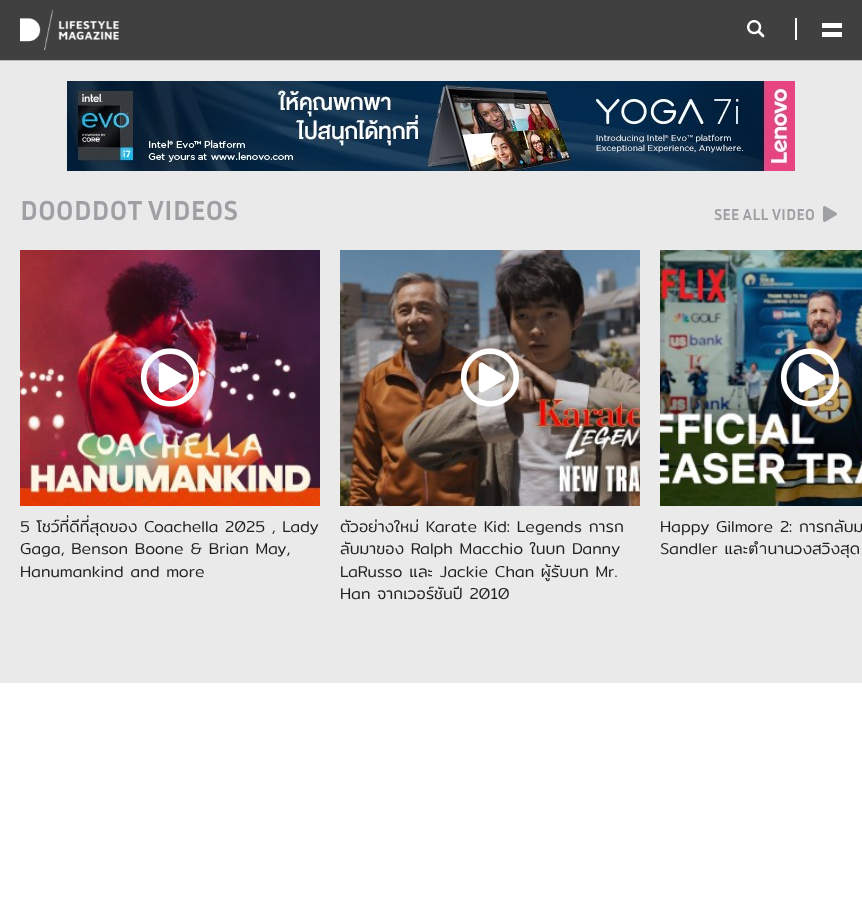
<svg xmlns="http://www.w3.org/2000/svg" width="862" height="905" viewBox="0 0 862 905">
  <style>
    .t1 { font: bold 28px Inria Sans; fill: #9fa0a3; }
    .t2 { font: bold 16px Inria Sans; fill: #9fa0a3; }
    .t3 { font: 300 16px Mitr; fill: #231f20; }
  </style>
  <rect width="100%" height="100%" fill="#fff"/>
  <rect x="0" y="0" width="862" height="60" fill="#404041"/>
  <image x="20" y="10" width="99" height="40" href="images/1.png"/>
  <rect x="795" y="18" width="2" height="22" fill="#fff"/>
  <image x="747" y="20" width="18" height="18" href="images/2.png"/>
  <rect x="822" y="23" width="20" height="5" fill="#fff"/>
  <rect x="822" y="32" width="20" height="5" fill="#fff"/>
  <rect x="0" y="60" width="862" height="1" fill="#bbb"/>
  <rect x="0" y="61" width="862" height="622" fill="#eaeaeb"/>
  <image x="67" y="81" width="728" height="90" href="images/3.png"/>
  <text x="20" y="220" class="t1">DOODDOT VIDEOS</text>
  <text x="714" y="220" class="t2">SEE ALL VIDEO</text>
  <image x="823" y="206" width="14" height="16" href="images/4.png"/>
  <image x="20" y="250" width="300" height="256" href="images/5.png"/>
  <image x="140" y="348" width="60" height="59" href="images/6.png"/>
  <text x="20" y="532" class="t3">5 โชว์ที่ดีที่สุดของ Coachella 2025 , Lady</text>
  <text x="20" y="554" class="t3">Gaga, Benson Boone &amp; Brian May,</text>
  <text x="20" y="577" class="t3">Hanumankind and more</text>
  <image x="340" y="250" width="300" height="256" href="images/7.png"/>
  <image x="460" y="348" width="60" height="59" href="images/8.png"/>
  <text x="340" y="532" class="t3">ตัวอย่างใหม่ Karate Kid: Legends การก</text>
  <text x="340" y="554" class="t3">ลับมาของ Ralph Macchio ในบท Danny</text>
  <text x="340" y="577" class="t3">LaRusso และ Jackie Chan ผู้รับบท Mr.</text>
  <text x="340" y="599" class="t3">Han จากเวอร์ชันปี 2010</text>
  <image x="660" y="250" width="202" height="256" href="images/9.png"/>
  <image x="780" y="348" width="60" height="59" href="images/10.png"/>
  <text x="660" y="532" class="t3">Happy Gilmore 2: การกลับม</text>
  <text x="660" y="554" class="t3">Sandler และตำนานวงสวิงสุด</text>
</svg>
